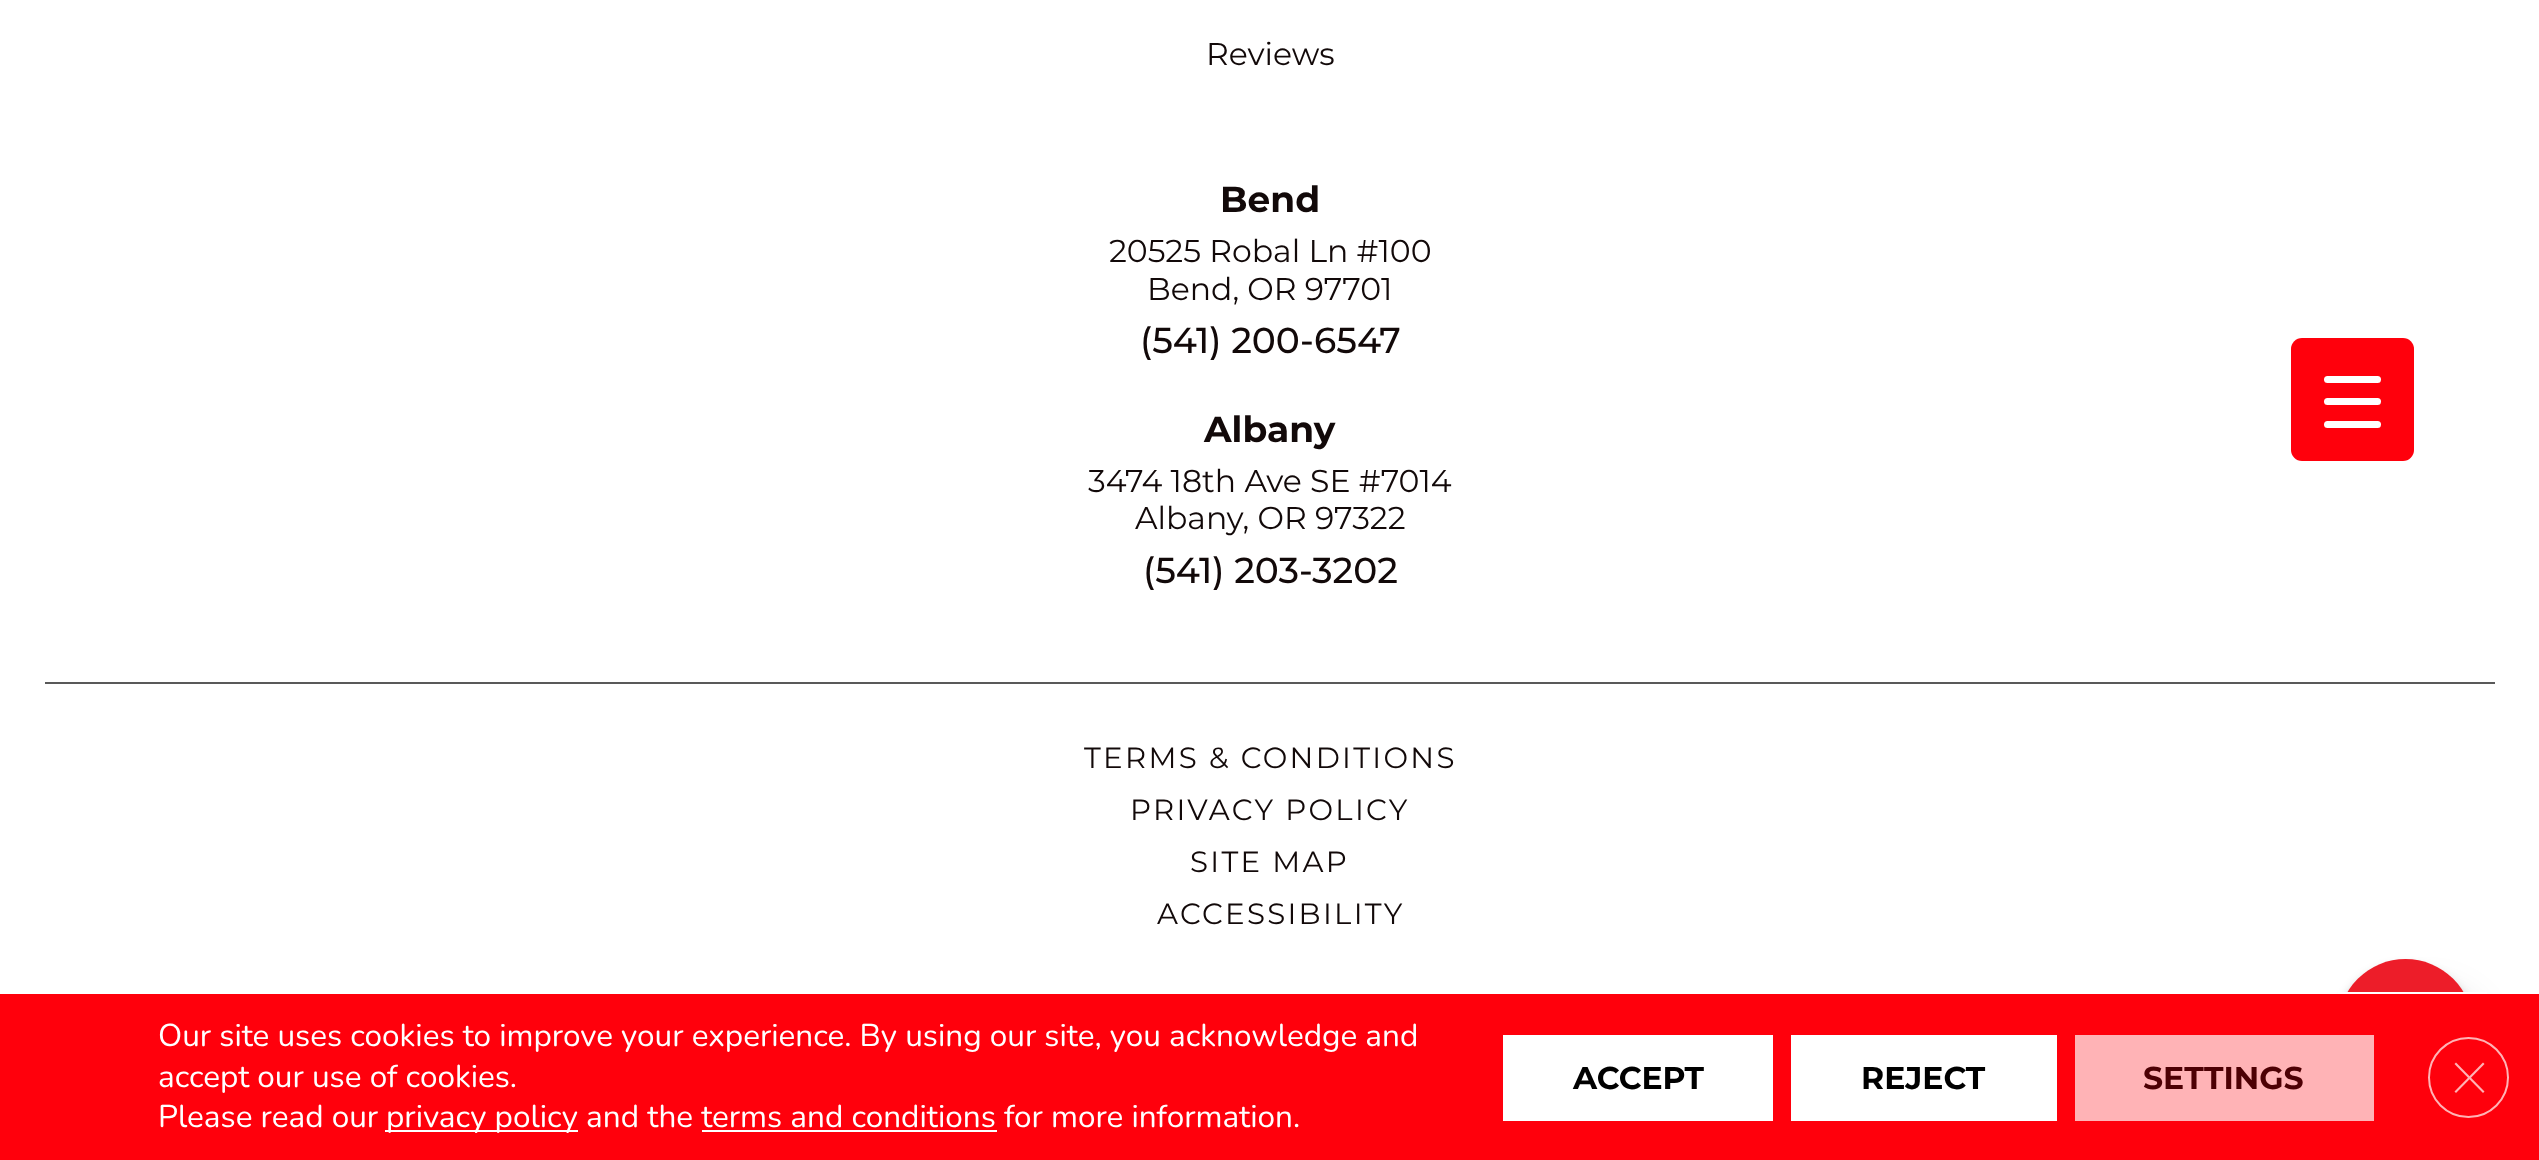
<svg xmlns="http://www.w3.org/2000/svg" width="2539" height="1160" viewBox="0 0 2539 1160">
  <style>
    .t1 { font: 31.5px Montserrat; fill: #120909; }
    .t2 { font: bold 36px Montserrat; fill: #120909; }
    .t3 { font: 500 36px Montserrat; fill: #120909; }
    .t4 { font: 29.25px Montserrat; letter-spacing: 2.3px; fill: #120909; }
    .t5 { font: 31.5px Nunito; fill: #fff; }
    .t6 { font: bold 31.5px Montserrat; fill: #000; }
    .t7 { font: bold 31.5px Montserrat; fill: #4d0004; }
  </style>
  <rect width="100%" height="100%" fill="#fff"/>
  <text x="1206" y="65" class="t1">Reviews</text>
  <text x="1220" y="212" class="t2">Bend</text>
  <text x="1109" y="262" class="t1">20525 Robal Ln #100</text>
  <text x="1147" y="300" class="t1">Bend, OR 97701</text>
  <text x="1140" y="353" class="t3">(541) 200-6547</text>
  <text x="1204" y="442" class="t2">Albany</text>
  <text x="1088" y="492" class="t1">3474 18th Ave SE #7014</text>
  <text x="1135" y="529" class="t1">Albany, OR 97322</text>
  <text x="1143" y="583" class="t3">(541) 203-3202</text>
  <rect x="45" y="682" width="2450" height="2" fill="#595959"/>
  <text x="1084" y="768" class="t4">TERMS &amp; CONDITIONS</text>
  <text x="1130" y="820" class="t4">PRIVACY POLICY</text>
  <text x="1190" y="872" class="t4">SITE MAP</text>
  <text x="1157" y="924" class="t4">ACCESSIBILITY</text>
  <rect x="2291" y="338" width="123" height="123" rx="11" fill="#ff000c"/>
  <rect x="2324" y="398" width="57" height="7" rx="3.5" fill="#fff"/>
  <rect x="2324" y="376" width="57" height="7" rx="3.5" fill="#fff"/>
  <rect x="2324" y="421" width="57" height="7" rx="3.5" fill="#fff"/>
  <rect x="2342" y="972" width="126" height="126" rx="63" fill="#000" filter="blur(7px)"/>
  <rect x="2367" y="988" width="122" height="121" rx="60.5" fill="#0000001a" filter="blur(17px)"/>
  <circle cx="2405.5" cy="1026.5" r="67.5" fill="#ed1d29"/>
  <rect x="0" y="994" width="2539" height="166" fill="#ff000c"/>
  <rect x="2338" y="992" width="149" height="2" fill="#fff"/>
  <text x="158" y="1046" class="t5">Our site uses cookies to improve your experience. By using our site, you acknowledge and</text>
  <text x="158" y="1087" class="t5">accept our use of cookies.</text>
  <text x="158" y="1127" class="t5">Please read our</text>
  <rect x="385" y="1130" width="193" height="2" fill="#fff"/>
  <text x="386" y="1127" class="t5">privacy policy and the terms and conditions for more information.</text>
  <rect x="702" y="1130" width="295" height="2" fill="#fff"/>
  <rect x="1503" y="1035" width="270" height="86" fill="#fff"/>
  <text x="1573" y="1089" class="t6">ACCEPT</text>
  <rect x="1791" y="1035" width="266" height="86" fill="#fff"/>
  <text x="1861" y="1089" class="t6">REJECT</text>
  <rect x="2075" y="1035" width="299" height="86" fill="#ffb3b6"/>
  <text x="2143" y="1089" class="t7">SETTINGS</text>
  <circle cx="2468.5" cy="1077.5" r="39.5" fill="none" stroke="#ffb3b6" stroke-width="2"/>
  <path d="M2483 1062.5L2484.5 1064L2456 1093L2454.5 1091.5Z" fill="#ffb3b6"/>
  <path d="M2454.5 1064L2456 1062.5L2484.5 1091.5L2483 1093Z" fill="#ffb3b6"/>
</svg>
